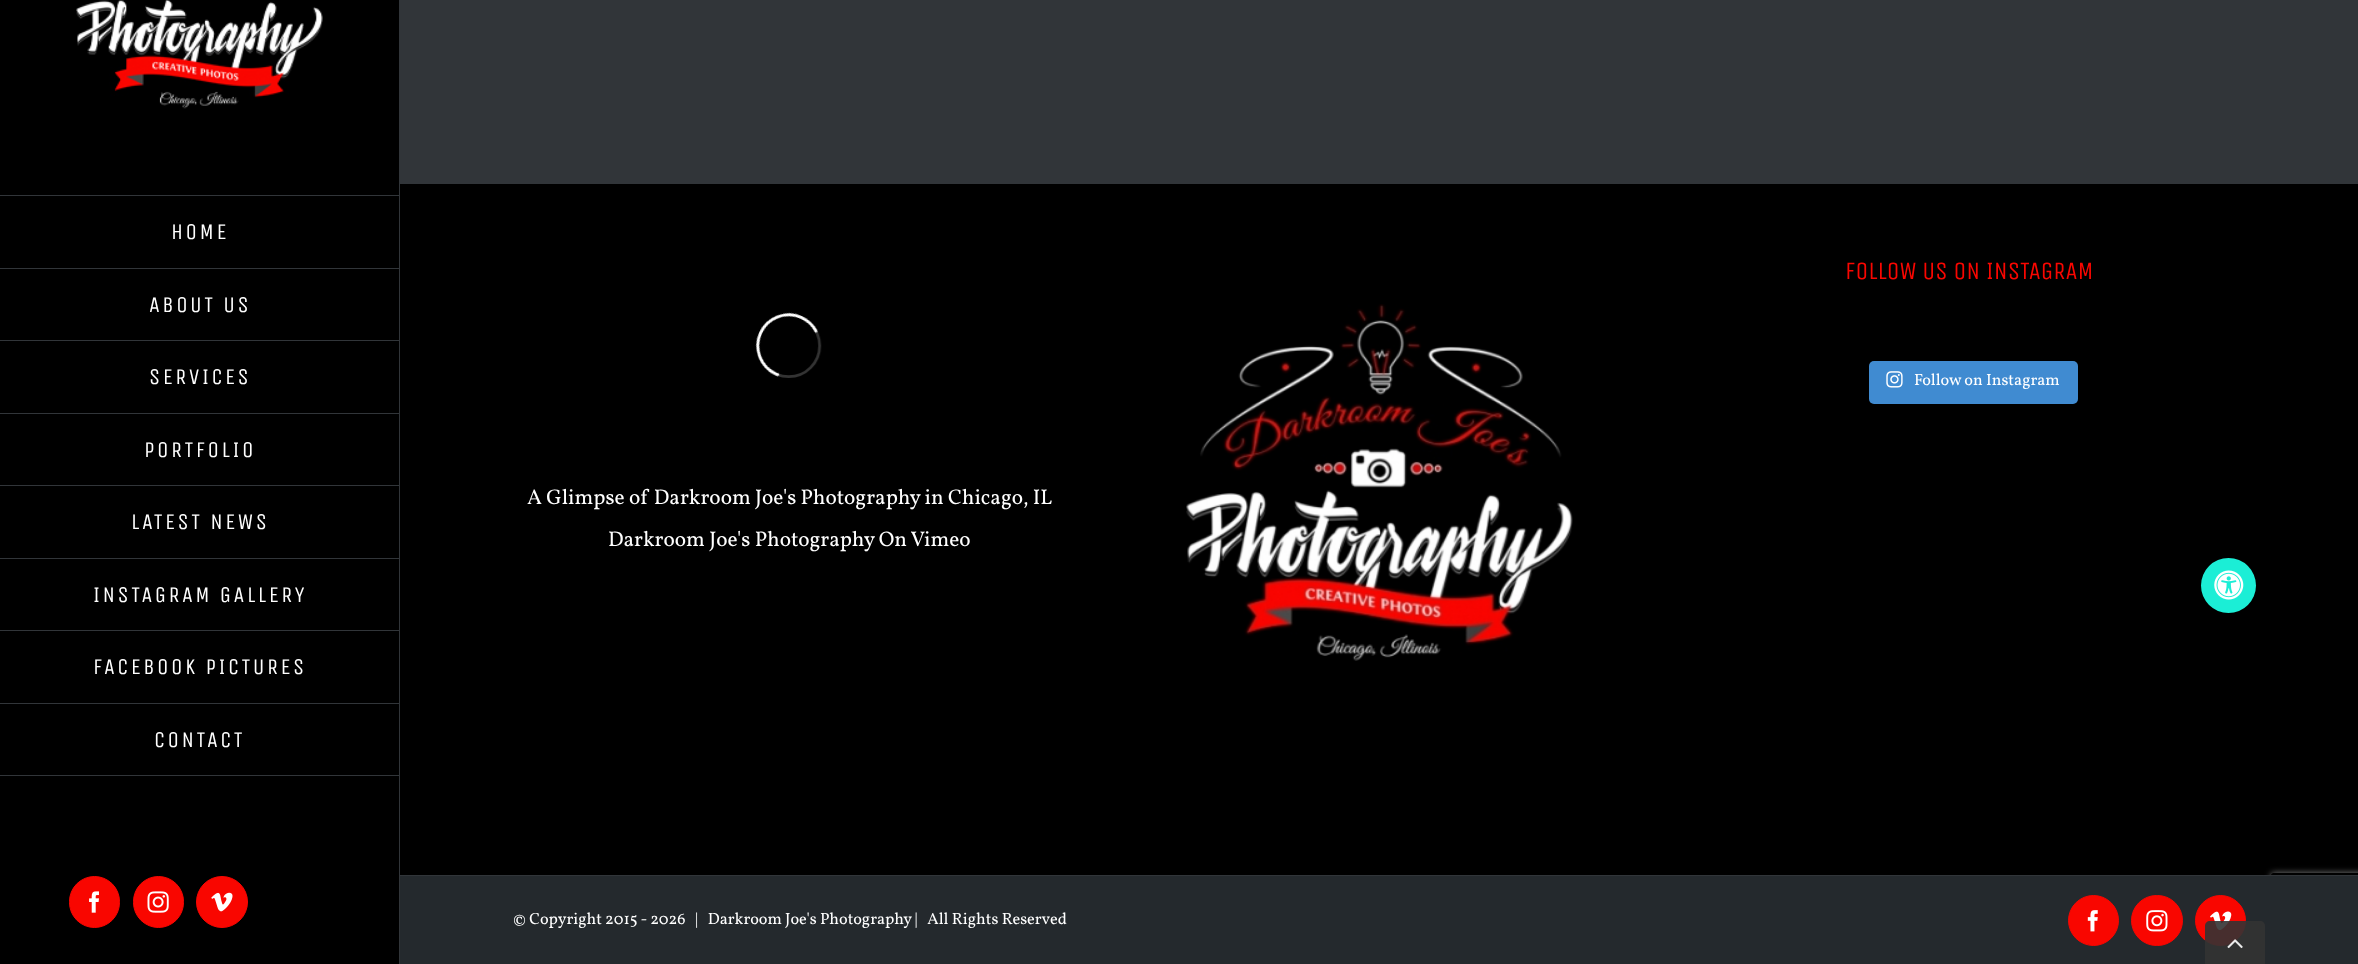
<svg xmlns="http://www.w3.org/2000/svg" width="2358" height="964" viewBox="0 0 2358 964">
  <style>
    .t1 { font: 22.5px Unica One; letter-spacing: 2.5px; fill: #fff; }
    .t2 { font: 21.25px Vollkorn; fill: #fff; }
    .t3 { font: 25px Unica One; fill: #f90600; }
    .t4 { font: 16.25px Vollkorn; fill: #fff; }
  </style>
  <defs>
    <clipPath id="clip1"><path d="M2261 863H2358V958H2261ZM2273.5 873H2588.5C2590 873 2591 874 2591 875.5V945.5C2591 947 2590 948 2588.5 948H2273.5C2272 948 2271 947 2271 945.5V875.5C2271 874 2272 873 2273.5 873Z" clip-rule="evenodd"/></clipPath>
  </defs>
  <rect width="100%" height="100%" fill="#313539"/>
  <rect x="0" y="0" width="399" height="964" fill="#000"/>
  <image x="76" y="0" width="247" height="109" href="images/1.png"/>
  <rect x="0" y="195" width="400" height="1" fill="#313539"/>
  <rect x="0" y="268" width="400" height="1" fill="#313539"/>
  <text x="171" y="239" class="t1">HOME</text>
  <rect x="0" y="340" width="400" height="1" fill="#313539"/>
  <text x="149" y="312" class="t1">ABOUT US</text>
  <rect x="0" y="413" width="400" height="1" fill="#313539"/>
  <text x="149" y="384" class="t1">SERVICES</text>
  <rect x="0" y="485" width="400" height="1" fill="#313539"/>
  <text x="144" y="457" class="t1">PORTFOLIO</text>
  <rect x="0" y="558" width="400" height="1" fill="#313539"/>
  <text x="131" y="529" class="t1">LATEST NEWS</text>
  <rect x="0" y="630" width="400" height="1" fill="#313539"/>
  <text x="93" y="602" class="t1">INSTAGRAM GALLERY</text>
  <rect x="0" y="703" width="400" height="1" fill="#313539"/>
  <text x="93" y="674" class="t1">FACEBOOK PICTURES</text>
  <rect x="0" y="775" width="400" height="1" fill="#313539"/>
  <text x="154" y="747" class="t1">CONTACT</text>
  <rect x="69.5" y="876.5" width="50" height="51" rx="25" fill="#f90600" stroke="#f90600"/>
  <image x="89" y="891" width="10" height="22" href="images/2.png"/>
  <rect x="133.5" y="876.5" width="50" height="51" rx="25" fill="#f90600" stroke="#f90600"/>
  <image x="147" y="891" width="22" height="22" href="images/3.png"/>
  <circle cx="222" cy="902" r="25.5" fill="#f90600" stroke="#f90600"/>
  <image x="211" y="892" width="22" height="20" href="images/4.png"/>
  <rect x="400" y="184" width="1958" height="691" fill="#000"/>
  <image x="755" y="312" width="67" height="66" href="images/5.png"/>
  <text x="527" y="504" class="t2">A Glimpse of Darkroom Joe's Photography in Chicago, IL</text>
  <text x="608" y="546" class="t2">Darkroom Joe's Photography On Vimeo</text>
  <image x="1186" y="304" width="387" height="357" href="images/6.png"/>
  <text x="1845" y="279" class="t3">FOLLOW US ON INSTAGRAM</text>
  <rect x="1869" y="361" width="209" height="43" rx="5" fill="#408bd1"/>
  <image x="1886" y="371" width="17" height="17" href="images/7.png"/>
  <text x="1914" y="385" class="t4">Follow on Instagram</text>
  <g clip-path="url(#clip1)">
    <rect x="2271" y="873" width="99" height="75" rx="2.5" fill="#808080" filter="blur(3px)"/>
  </g>
  <rect x="400" y="876" width="1958" height="88" fill="#24292d"/>
  <rect x="2266" y="875" width="6" height="1" fill="#313539"/>
  <text x="513" y="924" class="t4" xml:space="preserve">© Copyright 2015 - 2026   |   Darkroom Joe's Photography |   All Rights Reserved</text>
  <circle cx="2093.5" cy="920.5" r="25" fill="#f90600" stroke="#f90600"/>
  <image x="2087" y="910" width="11" height="22" href="images/8.png"/>
  <rect x="2131.5" y="895.5" width="51" height="50" rx="25" fill="#f90600" stroke="#f90600"/>
  <image x="2146" y="910" width="22" height="22" href="images/9.png"/>
  <circle cx="2220.5" cy="920.5" r="25" fill="#f90600" stroke="#f90600"/>
  <image x="2210" y="911" width="22" height="20" href="images/10.png"/>
  <circle cx="2228.5" cy="585.5" r="27.5" fill="#1beed6"/>
  <image x="2214" y="570" width="30" height="30" href="images/11.png"/>
  <path d="M2210 921H2260C2263 921 2265 923 2265 926V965H2205V926C2205 923 2207 921 2210 921Z" fill="#333333e6"/>
  <image x="2227" y="939" width="16" height="10" href="images/12.png"/>
</svg>
